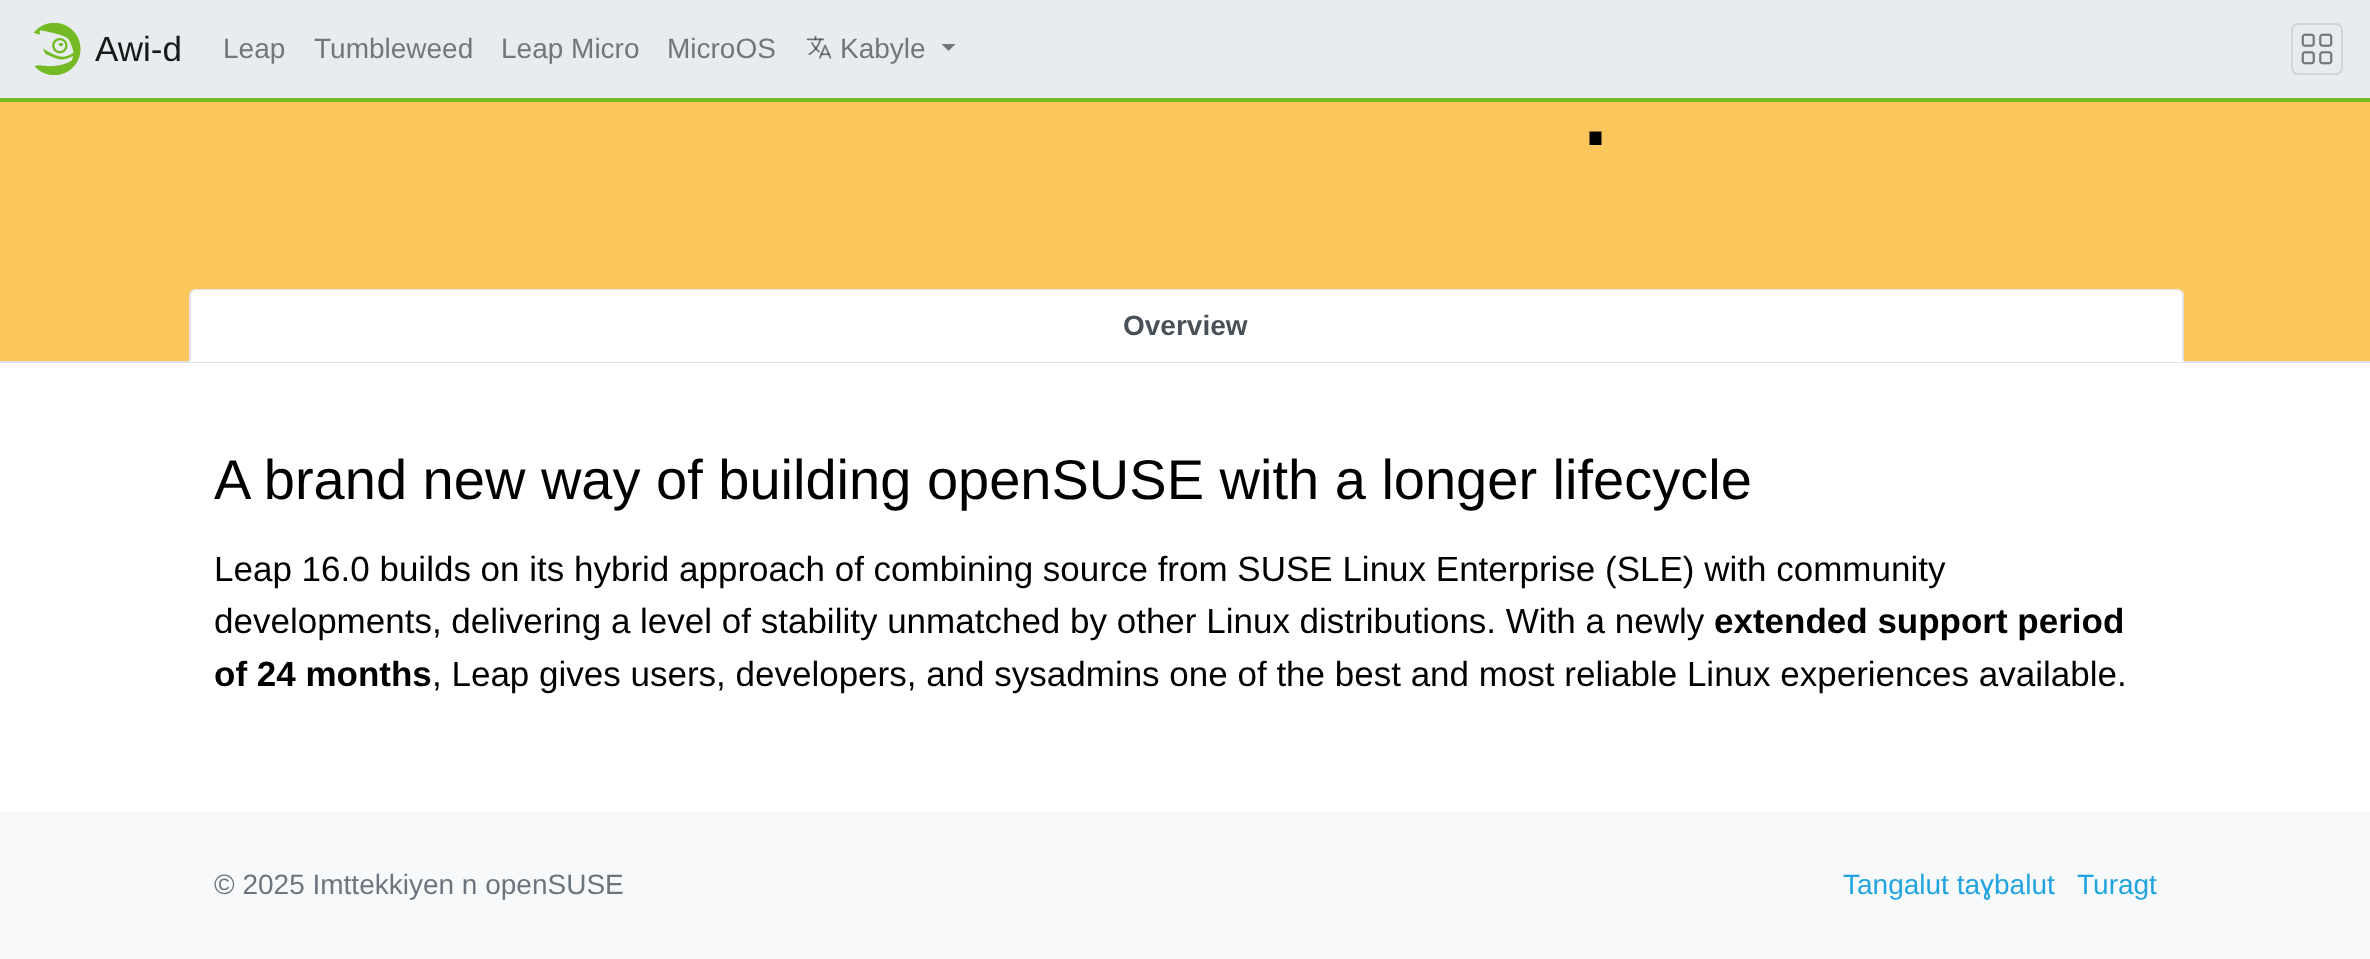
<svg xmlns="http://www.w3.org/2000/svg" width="2370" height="959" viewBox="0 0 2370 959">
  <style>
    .t1 { font: 35px Liberation Sans; fill: #171818; }
    .t2 { font: 28px Liberation Sans; fill: #757678; }
    .t3 { font: 126px Liberation Sans; fill: #000; }
    .t4 { font: bold 28px Liberation Sans; fill: #495057; }
    .t5 { font: 56px Liberation Sans; fill: #000; }
    .t6 { font: 35px Liberation Sans; fill: #000; }
    .t7 { font: bold 35px Liberation Sans; fill: #000; }
    .t8 { font: 28px Liberation Sans; fill: #6c757d; }
    .t9 { font: 28px Liberation Sans; fill: #21a4df; }
  </style>
  <rect width="100%" height="100%" fill="#fff"/>
  <rect x="0" y="0" width="2370" height="98" fill="#e9ecef"/>
  <rect x="0" y="98" width="2370" height="4" fill="#73ba25"/>
  <image x="33" y="23" width="48" height="52" href="images/1.png"/>
  <text x="95" y="61" class="t1">Awi-d</text>
  <text x="223" y="58" class="t2">Leap</text>
  <text x="314" y="58" class="t2">Tumbleweed</text>
  <text x="501" y="58" class="t2">Leap Micro</text>
  <text x="667" y="58" class="t2">MicroOS</text>
  <image x="806" y="35" width="26" height="24" href="images/2.png"/>
  <text x="840" y="58" class="t2">Kabyle</text>
  <path d="M941.5 44H955.5L948.5 51Z" fill="#757678"/>
  <rect x="2292" y="24" width="50" height="50" rx="6" fill="none" stroke="#d2d4d7" stroke-width="2"/>
  <image x="2301" y="33" width="32" height="32" href="images/3.png"/>
  <rect x="0" y="102" width="2370" height="259" fill="#fbc75d"/>
  <text x="1578" y="145" class="t3">.</text>
  <rect x="0" y="361" width="2370" height="2" fill="#dee2e6"/>
  <path d="M196 289H2177C2181 289 2184 292 2184 296V362H189V296C189 292 192 289 196 289Z" fill="#fff"/>
  <path d="M196 289C194 289 192 290 191 291L192 292C193 291 194 290 196 290H2177C2179 290 2180 291 2181 292L2182 291C2181 290 2179 289 2177 289Z" fill="#dee2e6"/>
  <path d="M2182 291C2183 292 2184 294 2184 296V362L2182 360V296C2182 295 2182 293 2181 292Z" fill="#dee2e6"/>
  <path d="M2184 362H189L191 360H2182Z" fill="#fff"/>
  <path d="M189 296V362L191 360V296C191 295 191 293 192 292L191 291C190 292 189 294 189 296Z" fill="#dee2e6"/>
  <text x="1123" y="335" class="t4">Overview</text>
  <text x="214" y="499" class="t5">A brand new way of building openSUSE with a longer lifecycle</text>
  <text x="214" y="581" class="t6">Leap 16.0 builds on its hybrid approach of combining source from SUSE Linux Enterprise (SLE) with community</text>
  <text x="214" y="633" class="t6">developments, delivering a level of stability unmatched by other Linux distributions. With a newly</text>
  <text x="1714" y="633" class="t7">extended support period</text>
  <text x="214" y="686" class="t7">of 24 months</text>
  <text x="432" y="686" class="t6">, Leap gives users, developers, and sysadmins one of the best and most reliable Linux experiences available.</text>
  <rect x="0" y="812" width="2370" height="147" fill="#f8f9fa"/>
  <text x="214" y="894" class="t8">© 2025 Imttekkiyen n openSUSE</text>
  <text x="1843" y="894" class="t9">Tangalut taɣbalut</text>
  <text x="2077" y="894" class="t9">Turagt</text>
</svg>
